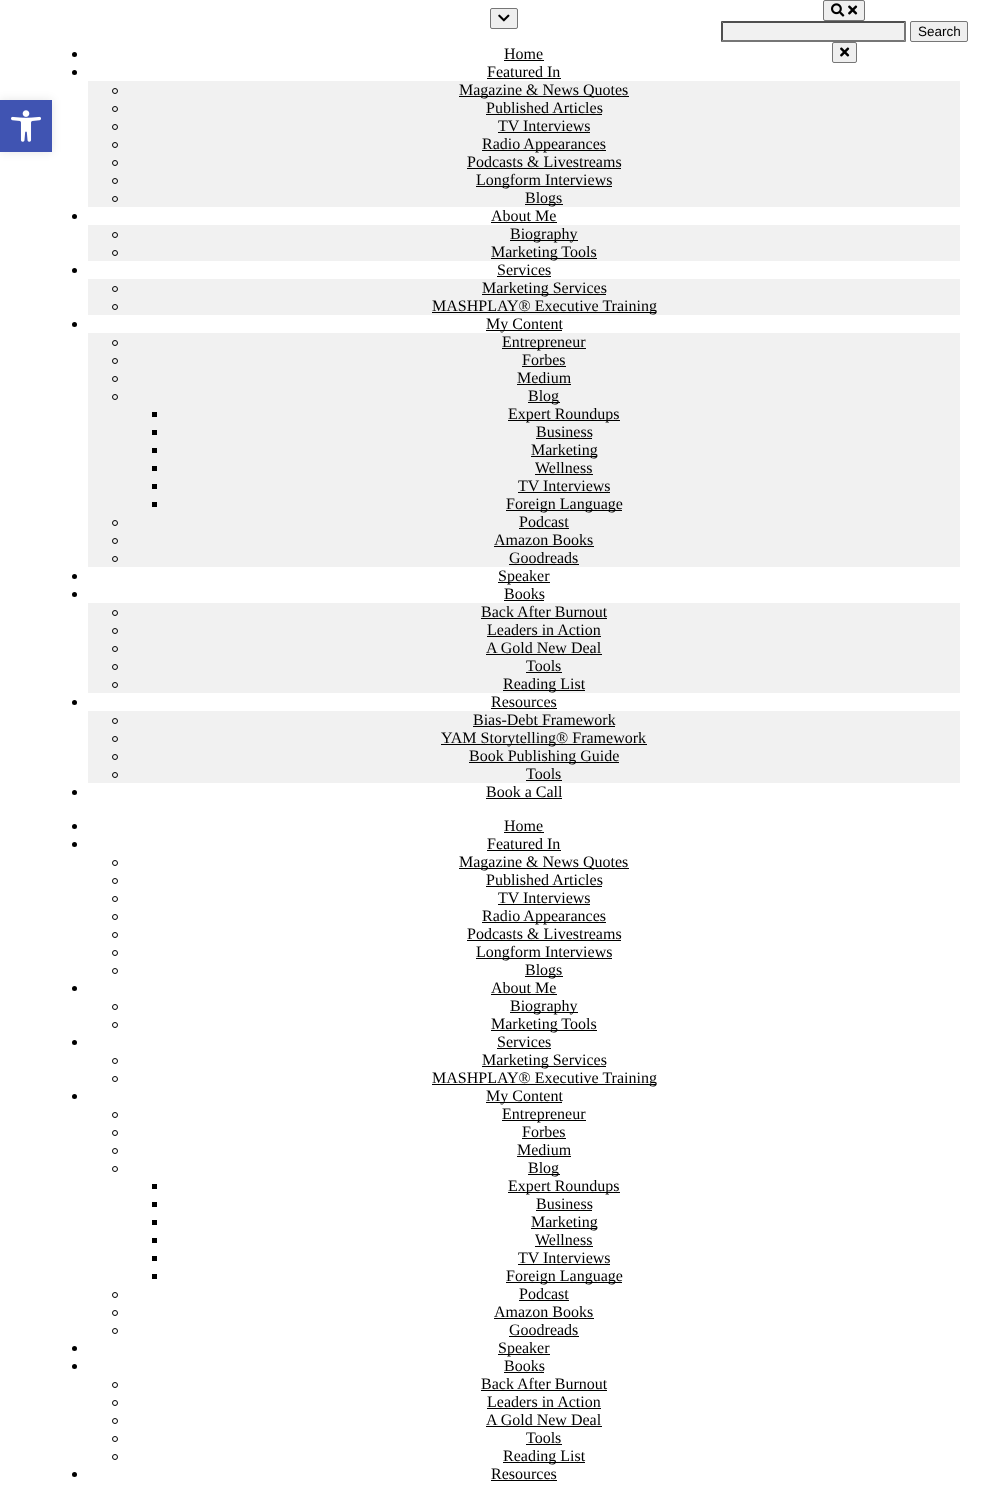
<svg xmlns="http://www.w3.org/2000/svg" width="1008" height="1486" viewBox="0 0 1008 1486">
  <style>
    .t1 { font: 13.5px Liberation Sans; fill: #000; }
    .t2 { font: 16px Liberation Serif; fill: #000; }
  </style>
  <rect width="100%" height="100%" fill="#fff"/>
  <rect x="0" y="100" width="52" height="52" fill="#0000001a" filter="blur(5px)"/>
  <rect x="0" y="100" width="52" height="52" fill="#4054b2"/>
  <image x="11" y="110" width="30" height="32" href="images/1.png"/>
  <rect x="490.5" y="8.5" width="27" height="20" rx="1.5" fill="#efefef" stroke="#767676"/>
  <image x="498" y="14" width="12" height="8" href="images/2.png"/>
  <rect x="823.5" y="0.5" width="41" height="20" rx="1.5" fill="#efefef" stroke="#767676"/>
  <image x="831" y="3" width="14" height="14" href="images/3.png"/>
  <image x="848" y="5" width="10" height="10" href="images/4.png"/>
  <rect x="721" y="21" width="185" height="21" fill="#f1f1f1"/>
  <path d="M721 21H906L904 23H723Z" fill="#4f4f4f"/>
  <path d="M906 21V42L904 40V23Z" fill="#767676"/>
  <path d="M906 42H721L723 40H904Z" fill="#767676"/>
  <path d="M721 42V21L723 23V40Z" fill="#4f4f4f"/>
  <rect x="910.5" y="21.5" width="57" height="20" rx="1.5" fill="#efefef" stroke="#767676"/>
  <text x="918" y="36" class="t1">Search</text>
  <rect x="832.5" y="42.5" width="24" height="20" rx="1.5" fill="#efefef" stroke="#767676"/>
  <image x="840" y="47" width="10" height="10" href="images/4.png"/>
  <circle cx="74.5" cy="54.5" r="2.5" fill="#000"/>
  <text x="504" y="59" class="t2">Home</text>
  <rect x="504" y="60" width="40" height="1" fill="#000"/>
  <circle cx="74.5" cy="72.5" r="2.5" fill="#000"/>
  <text x="487" y="77" class="t2">Featured In</text>
  <rect x="487" y="78" width="74" height="1" fill="#000"/>
  <rect x="88" y="81" width="872" height="126" fill="#f1f1f1"/>
  <circle cx="115" cy="91" r="2.5" fill="none" stroke="#000"/>
  <rect x="459" y="96" width="170" height="1" fill="#000"/>
  <text x="459" y="95" class="t2">Magazine &amp; News Quotes</text>
  <circle cx="115" cy="109" r="2.5" fill="none" stroke="#000"/>
  <text x="486" y="113" class="t2">Published Articles</text>
  <rect x="486" y="114" width="116" height="1" fill="#000"/>
  <circle cx="115" cy="127" r="2.5" fill="none" stroke="#000"/>
  <text x="498" y="131" class="t2">TV Interviews</text>
  <rect x="498" y="132" width="92" height="1" fill="#000"/>
  <circle cx="115" cy="145" r="2.5" fill="none" stroke="#000"/>
  <rect x="482" y="150" width="124" height="1" fill="#000"/>
  <text x="482" y="149" class="t2">Radio Appearances</text>
  <circle cx="115" cy="163" r="2.5" fill="none" stroke="#000"/>
  <text x="467" y="167" class="t2">Podcasts &amp; Livestreams</text>
  <rect x="467" y="168" width="154" height="1" fill="#000"/>
  <circle cx="115" cy="181" r="2.5" fill="none" stroke="#000"/>
  <rect x="476" y="186" width="136" height="1" fill="#000"/>
  <text x="476" y="185" class="t2">Longform Interviews</text>
  <circle cx="115" cy="199" r="2.5" fill="none" stroke="#000"/>
  <rect x="525" y="204" width="38" height="1" fill="#000"/>
  <text x="525" y="203" class="t2">Blogs</text>
  <circle cx="74.5" cy="216.5" r="2.5" fill="#000"/>
  <text x="491" y="221" class="t2">About Me</text>
  <rect x="491" y="222" width="66" height="1" fill="#000"/>
  <rect x="88" y="225" width="872" height="36" fill="#f1f1f1"/>
  <circle cx="115" cy="235" r="2.5" fill="none" stroke="#000"/>
  <rect x="510" y="240" width="68" height="1" fill="#000"/>
  <text x="510" y="239" class="t2">Biography</text>
  <circle cx="115" cy="253" r="2.5" fill="none" stroke="#000"/>
  <rect x="491" y="258" width="106" height="1" fill="#000"/>
  <text x="491" y="257" class="t2">Marketing Tools</text>
  <circle cx="74.5" cy="270.5" r="2.5" fill="#000"/>
  <text x="497" y="275" class="t2">Services</text>
  <rect x="497" y="276" width="54" height="1" fill="#000"/>
  <rect x="88" y="279" width="872" height="36" fill="#f1f1f1"/>
  <circle cx="115" cy="289" r="2.5" fill="none" stroke="#000"/>
  <rect x="482" y="294" width="124" height="1" fill="#000"/>
  <text x="482" y="293" class="t2">Marketing Services</text>
  <circle cx="115" cy="307" r="2.5" fill="none" stroke="#000"/>
  <rect x="432" y="312" width="224" height="1" fill="#000"/>
  <text x="432" y="311" class="t2">MASHPLAY® Executive Training</text>
  <circle cx="74.5" cy="324.5" r="2.5" fill="#000"/>
  <rect x="486" y="330" width="76" height="1" fill="#000"/>
  <text x="486" y="329" class="t2">My Content</text>
  <rect x="88" y="333" width="872" height="234" fill="#f1f1f1"/>
  <circle cx="115" cy="343" r="2.5" fill="none" stroke="#000"/>
  <rect x="502" y="348" width="84" height="1" fill="#000"/>
  <text x="502" y="347" class="t2">Entrepreneur</text>
  <circle cx="115" cy="361" r="2.5" fill="none" stroke="#000"/>
  <text x="522" y="365" class="t2">Forbes</text>
  <rect x="522" y="366" width="44" height="1" fill="#000"/>
  <circle cx="115" cy="379" r="2.5" fill="none" stroke="#000"/>
  <text x="517" y="383" class="t2">Medium</text>
  <rect x="517" y="384" width="54" height="1" fill="#000"/>
  <circle cx="115" cy="397" r="2.5" fill="none" stroke="#000"/>
  <rect x="528" y="402" width="32" height="1" fill="#000"/>
  <text x="528" y="401" class="t2">Blog</text>
  <rect x="152" y="412" width="5" height="5" fill="#000"/>
  <rect x="508" y="420" width="112" height="1" fill="#000"/>
  <text x="508" y="419" class="t2">Expert Roundups</text>
  <rect x="152" y="430" width="5" height="5" fill="#000"/>
  <text x="536" y="437" class="t2">Business</text>
  <rect x="536" y="438" width="56" height="1" fill="#000"/>
  <rect x="152" y="448" width="5" height="5" fill="#000"/>
  <rect x="531" y="456" width="66" height="1" fill="#000"/>
  <text x="531" y="455" class="t2">Marketing</text>
  <rect x="152" y="466" width="5" height="5" fill="#000"/>
  <text x="535" y="473" class="t2">Wellness</text>
  <rect x="535" y="474" width="58" height="1" fill="#000"/>
  <rect x="152" y="484" width="5" height="5" fill="#000"/>
  <text x="518" y="491" class="t2">TV Interviews</text>
  <rect x="518" y="492" width="92" height="1" fill="#000"/>
  <rect x="152" y="502" width="5" height="5" fill="#000"/>
  <rect x="506" y="510" width="116" height="1" fill="#000"/>
  <text x="506" y="509" class="t2">Foreign Language</text>
  <circle cx="115" cy="523" r="2.5" fill="none" stroke="#000"/>
  <text x="519" y="527" class="t2">Podcast</text>
  <rect x="519" y="528" width="50" height="1" fill="#000"/>
  <circle cx="115" cy="541" r="2.5" fill="none" stroke="#000"/>
  <text x="494" y="545" class="t2">Amazon Books</text>
  <rect x="494" y="546" width="100" height="1" fill="#000"/>
  <circle cx="115" cy="559" r="2.5" fill="none" stroke="#000"/>
  <text x="509" y="563" class="t2">Goodreads</text>
  <rect x="509" y="564" width="70" height="1" fill="#000"/>
  <circle cx="74.5" cy="576.5" r="2.5" fill="#000"/>
  <rect x="498" y="582" width="52" height="1" fill="#000"/>
  <text x="498" y="581" class="t2">Speaker</text>
  <circle cx="74.5" cy="594.5" r="2.5" fill="#000"/>
  <text x="504" y="599" class="t2">Books</text>
  <rect x="504" y="600" width="40" height="1" fill="#000"/>
  <rect x="88" y="603" width="872" height="90" fill="#f1f1f1"/>
  <circle cx="115" cy="613" r="2.5" fill="none" stroke="#000"/>
  <text x="481" y="617" class="t2">Back After Burnout</text>
  <rect x="481" y="618" width="126" height="1" fill="#000"/>
  <circle cx="115" cy="631" r="2.5" fill="none" stroke="#000"/>
  <text x="487" y="635" class="t2">Leaders in Action</text>
  <rect x="487" y="636" width="114" height="1" fill="#000"/>
  <circle cx="115" cy="649" r="2.5" fill="none" stroke="#000"/>
  <text x="486" y="653" class="t2">A Gold New Deal</text>
  <rect x="486" y="654" width="116" height="1" fill="#000"/>
  <circle cx="115" cy="667" r="2.5" fill="none" stroke="#000"/>
  <text x="526" y="671" class="t2">Tools</text>
  <rect x="526" y="672" width="36" height="1" fill="#000"/>
  <circle cx="115" cy="685" r="2.5" fill="none" stroke="#000"/>
  <rect x="503" y="690" width="82" height="1" fill="#000"/>
  <text x="503" y="689" class="t2">Reading List</text>
  <circle cx="74.5" cy="702.5" r="2.5" fill="#000"/>
  <text x="491" y="707" class="t2">Resources</text>
  <rect x="491" y="708" width="66" height="1" fill="#000"/>
  <rect x="88" y="711" width="872" height="72" fill="#f1f1f1"/>
  <circle cx="115" cy="721" r="2.5" fill="none" stroke="#000"/>
  <text x="473" y="725" class="t2">Bias-Debt Framework</text>
  <rect x="473" y="726" width="142" height="1" fill="#000"/>
  <circle cx="115" cy="739" r="2.5" fill="none" stroke="#000"/>
  <rect x="441" y="744" width="206" height="1" fill="#000"/>
  <text x="441" y="743" class="t2">YAM Storytelling® Framework</text>
  <circle cx="115" cy="757" r="2.5" fill="none" stroke="#000"/>
  <rect x="469" y="762" width="150" height="1" fill="#000"/>
  <text x="469" y="761" class="t2">Book Publishing Guide</text>
  <circle cx="115" cy="775" r="2.5" fill="none" stroke="#000"/>
  <text x="526" y="779" class="t2">Tools</text>
  <rect x="526" y="780" width="36" height="1" fill="#000"/>
  <circle cx="74.5" cy="792.5" r="2.5" fill="#000"/>
  <text x="486" y="797" class="t2">Book a Call</text>
  <rect x="486" y="798" width="76" height="1" fill="#000"/>
  <circle cx="74.5" cy="826.5" r="2.5" fill="#000"/>
  <text x="504" y="831" class="t2">Home</text>
  <rect x="504" y="832" width="40" height="1" fill="#000"/>
  <circle cx="74.5" cy="844.5" r="2.5" fill="#000"/>
  <text x="487" y="849" class="t2">Featured In</text>
  <rect x="487" y="850" width="74" height="1" fill="#000"/>
  <circle cx="115" cy="863" r="2.5" fill="none" stroke="#000"/>
  <rect x="459" y="868" width="170" height="1" fill="#000"/>
  <text x="459" y="867" class="t2">Magazine &amp; News Quotes</text>
  <circle cx="115" cy="881" r="2.5" fill="none" stroke="#000"/>
  <text x="486" y="885" class="t2">Published Articles</text>
  <rect x="486" y="886" width="116" height="1" fill="#000"/>
  <circle cx="115" cy="899" r="2.5" fill="none" stroke="#000"/>
  <text x="498" y="903" class="t2">TV Interviews</text>
  <rect x="498" y="904" width="92" height="1" fill="#000"/>
  <circle cx="115" cy="917" r="2.5" fill="none" stroke="#000"/>
  <rect x="482" y="922" width="124" height="1" fill="#000"/>
  <text x="482" y="921" class="t2">Radio Appearances</text>
  <circle cx="115" cy="935" r="2.5" fill="none" stroke="#000"/>
  <text x="467" y="939" class="t2">Podcasts &amp; Livestreams</text>
  <rect x="467" y="940" width="154" height="1" fill="#000"/>
  <circle cx="115" cy="953" r="2.5" fill="none" stroke="#000"/>
  <rect x="476" y="958" width="136" height="1" fill="#000"/>
  <text x="476" y="957" class="t2">Longform Interviews</text>
  <circle cx="115" cy="971" r="2.5" fill="none" stroke="#000"/>
  <rect x="525" y="976" width="38" height="1" fill="#000"/>
  <text x="525" y="975" class="t2">Blogs</text>
  <circle cx="74.5" cy="988.5" r="2.5" fill="#000"/>
  <text x="491" y="993" class="t2">About Me</text>
  <rect x="491" y="994" width="66" height="1" fill="#000"/>
  <circle cx="115" cy="1007" r="2.5" fill="none" stroke="#000"/>
  <rect x="510" y="1012" width="68" height="1" fill="#000"/>
  <text x="510" y="1011" class="t2">Biography</text>
  <circle cx="115" cy="1025" r="2.5" fill="none" stroke="#000"/>
  <rect x="491" y="1030" width="106" height="1" fill="#000"/>
  <text x="491" y="1029" class="t2">Marketing Tools</text>
  <circle cx="74.5" cy="1042.5" r="2.5" fill="#000"/>
  <text x="497" y="1047" class="t2">Services</text>
  <rect x="497" y="1048" width="54" height="1" fill="#000"/>
  <circle cx="115" cy="1061" r="2.5" fill="none" stroke="#000"/>
  <rect x="482" y="1066" width="124" height="1" fill="#000"/>
  <text x="482" y="1065" class="t2">Marketing Services</text>
  <circle cx="115" cy="1079" r="2.5" fill="none" stroke="#000"/>
  <rect x="432" y="1084" width="224" height="1" fill="#000"/>
  <text x="432" y="1083" class="t2">MASHPLAY® Executive Training</text>
  <circle cx="74.5" cy="1096.5" r="2.5" fill="#000"/>
  <rect x="486" y="1102" width="76" height="1" fill="#000"/>
  <text x="486" y="1101" class="t2">My Content</text>
  <circle cx="115" cy="1115" r="2.5" fill="none" stroke="#000"/>
  <rect x="502" y="1120" width="84" height="1" fill="#000"/>
  <text x="502" y="1119" class="t2">Entrepreneur</text>
  <circle cx="115" cy="1133" r="2.5" fill="none" stroke="#000"/>
  <text x="522" y="1137" class="t2">Forbes</text>
  <rect x="522" y="1138" width="44" height="1" fill="#000"/>
  <circle cx="115" cy="1151" r="2.5" fill="none" stroke="#000"/>
  <text x="517" y="1155" class="t2">Medium</text>
  <rect x="517" y="1156" width="54" height="1" fill="#000"/>
  <circle cx="115" cy="1169" r="2.5" fill="none" stroke="#000"/>
  <rect x="528" y="1174" width="32" height="1" fill="#000"/>
  <text x="528" y="1173" class="t2">Blog</text>
  <rect x="152" y="1184" width="5" height="5" fill="#000"/>
  <rect x="508" y="1192" width="112" height="1" fill="#000"/>
  <text x="508" y="1191" class="t2">Expert Roundups</text>
  <rect x="152" y="1202" width="5" height="5" fill="#000"/>
  <text x="536" y="1209" class="t2">Business</text>
  <rect x="536" y="1210" width="56" height="1" fill="#000"/>
  <rect x="152" y="1220" width="5" height="5" fill="#000"/>
  <rect x="531" y="1228" width="66" height="1" fill="#000"/>
  <text x="531" y="1227" class="t2">Marketing</text>
  <rect x="152" y="1238" width="5" height="5" fill="#000"/>
  <text x="535" y="1245" class="t2">Wellness</text>
  <rect x="535" y="1246" width="58" height="1" fill="#000"/>
  <rect x="152" y="1256" width="5" height="5" fill="#000"/>
  <text x="518" y="1263" class="t2">TV Interviews</text>
  <rect x="518" y="1264" width="92" height="1" fill="#000"/>
  <rect x="152" y="1274" width="5" height="5" fill="#000"/>
  <rect x="506" y="1282" width="116" height="1" fill="#000"/>
  <text x="506" y="1281" class="t2">Foreign Language</text>
  <circle cx="115" cy="1295" r="2.5" fill="none" stroke="#000"/>
  <text x="519" y="1299" class="t2">Podcast</text>
  <rect x="519" y="1300" width="50" height="1" fill="#000"/>
  <circle cx="115" cy="1313" r="2.5" fill="none" stroke="#000"/>
  <text x="494" y="1317" class="t2">Amazon Books</text>
  <rect x="494" y="1318" width="100" height="1" fill="#000"/>
  <circle cx="115" cy="1331" r="2.5" fill="none" stroke="#000"/>
  <text x="509" y="1335" class="t2">Goodreads</text>
  <rect x="509" y="1336" width="70" height="1" fill="#000"/>
  <circle cx="74.5" cy="1348.5" r="2.5" fill="#000"/>
  <rect x="498" y="1354" width="52" height="1" fill="#000"/>
  <text x="498" y="1353" class="t2">Speaker</text>
  <circle cx="74.5" cy="1366.5" r="2.5" fill="#000"/>
  <text x="504" y="1371" class="t2">Books</text>
  <rect x="504" y="1372" width="40" height="1" fill="#000"/>
  <circle cx="115" cy="1385" r="2.5" fill="none" stroke="#000"/>
  <text x="481" y="1389" class="t2">Back After Burnout</text>
  <rect x="481" y="1390" width="126" height="1" fill="#000"/>
  <circle cx="115" cy="1403" r="2.5" fill="none" stroke="#000"/>
  <text x="487" y="1407" class="t2">Leaders in Action</text>
  <rect x="487" y="1408" width="114" height="1" fill="#000"/>
  <circle cx="115" cy="1421" r="2.5" fill="none" stroke="#000"/>
  <text x="486" y="1425" class="t2">A Gold New Deal</text>
  <rect x="486" y="1426" width="116" height="1" fill="#000"/>
  <circle cx="115" cy="1439" r="2.5" fill="none" stroke="#000"/>
  <text x="526" y="1443" class="t2">Tools</text>
  <rect x="526" y="1444" width="36" height="1" fill="#000"/>
  <circle cx="115" cy="1457" r="2.5" fill="none" stroke="#000"/>
  <rect x="503" y="1462" width="82" height="1" fill="#000"/>
  <text x="503" y="1461" class="t2">Reading List</text>
  <circle cx="74.5" cy="1474.5" r="2.5" fill="#000"/>
  <text x="491" y="1479" class="t2">Resources</text>
  <rect x="491" y="1480" width="66" height="1" fill="#000"/>
</svg>
